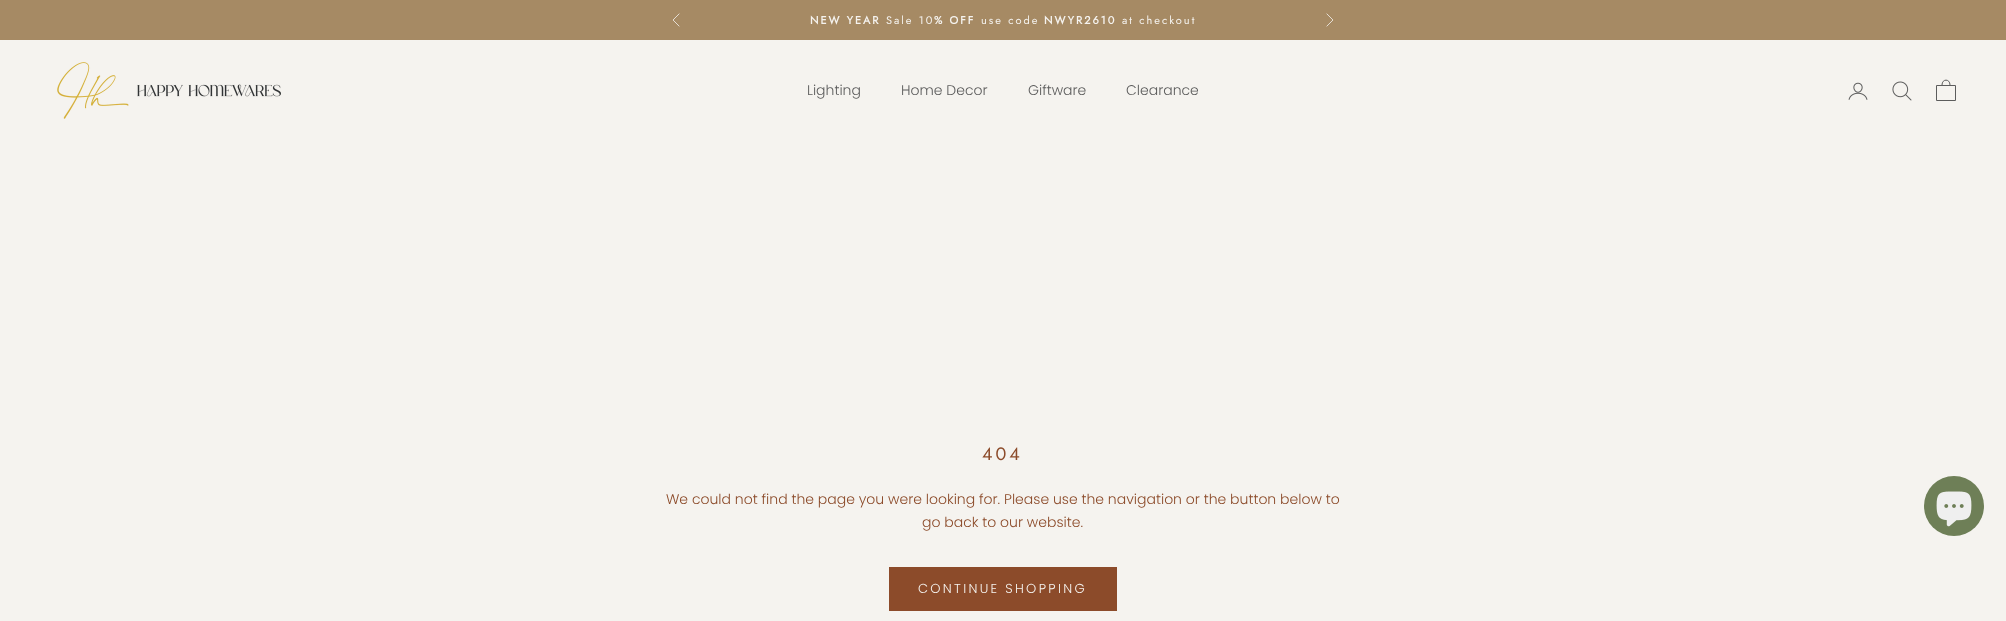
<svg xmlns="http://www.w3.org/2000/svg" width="2006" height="621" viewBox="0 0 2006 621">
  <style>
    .t1 { font: bold 11px Jost; letter-spacing: 2px; fill: #f5f3ef; }
    .t2 { font: 11px Jost; letter-spacing: 2px; fill: #f5f3ef; }
    .t3 { font: 300 14px Poppins; fill: #5c5c5c; }
    .t4 { font: 18px Jost; letter-spacing: 3px; fill: #8c4b2a; }
    .t5 { font: 300 14px Poppins; fill: #8c4b2a; }
    .t6 { font: 300 13px Poppins; letter-spacing: 2.3px; fill: #f5f3ef; }
  </style>
  <rect width="100%" height="100%" fill="#f5f3ef"/>
  <rect x="0" y="0" width="2006" height="40" fill="#a68a64"/>
  <path d="M679 14L673 20L679 26" fill="none" stroke="#f5f3ef" stroke-width="0.8" stroke-linecap="square"/>
  <text x="810" y="24" class="t1">NEW YEAR</text>
  <text x="886" y="24" class="t2">Sale 10</text>
  <text x="934" y="24" class="t1">% OFF</text>
  <text x="981" y="24" class="t2">use code</text>
  <text x="1044" y="24" class="t1">NWYR2610</text>
  <text x="1122" y="24" class="t2">at checkout</text>
  <path d="M1327 26L1333 20L1327 14" fill="none" stroke="#f5f3ef" stroke-width="0.8" stroke-linecap="square"/>
  <image x="57" y="62" width="224" height="57" href="images/1.png"/>
  <text x="807" y="95" class="t3">Lighting</text>
  <text x="901" y="95" class="t3">Home Decor</text>
  <text x="1028" y="95" class="t3">Giftware</text>
  <text x="1126" y="95" class="t3">Clearance</text>
  <image x="1848" y="82" width="20" height="18" href="images/2.png"/>
  <image x="1892" y="81" width="20" height="20" href="images/3.png"/>
  <path d="M1955.5 100.5V85.5H1936.5V100.5ZM1942 85C1942 78.5 1950 78.5 1950 85" fill="none" stroke="#5c5c5c"/>
  <text x="982" y="460" class="t4">404</text>
  <text x="666" y="504" class="t5">We could not find the page you were looking for. Please use the navigation or the button below to</text>
  <text x="922" y="527" class="t5">go back to our website.</text>
  <rect x="889.5" y="567.5" width="227" height="43" fill="#8c4b2a" stroke="#8c4b2a"/>
  <text x="918" y="593" class="t6">CONTINUE SHOPPING</text>
  <circle cx="1954" cy="506" r="30" fill="#6e7f57"/>
  <image x="1936" y="491" width="36" height="36" href="images/4.png"/>
</svg>
